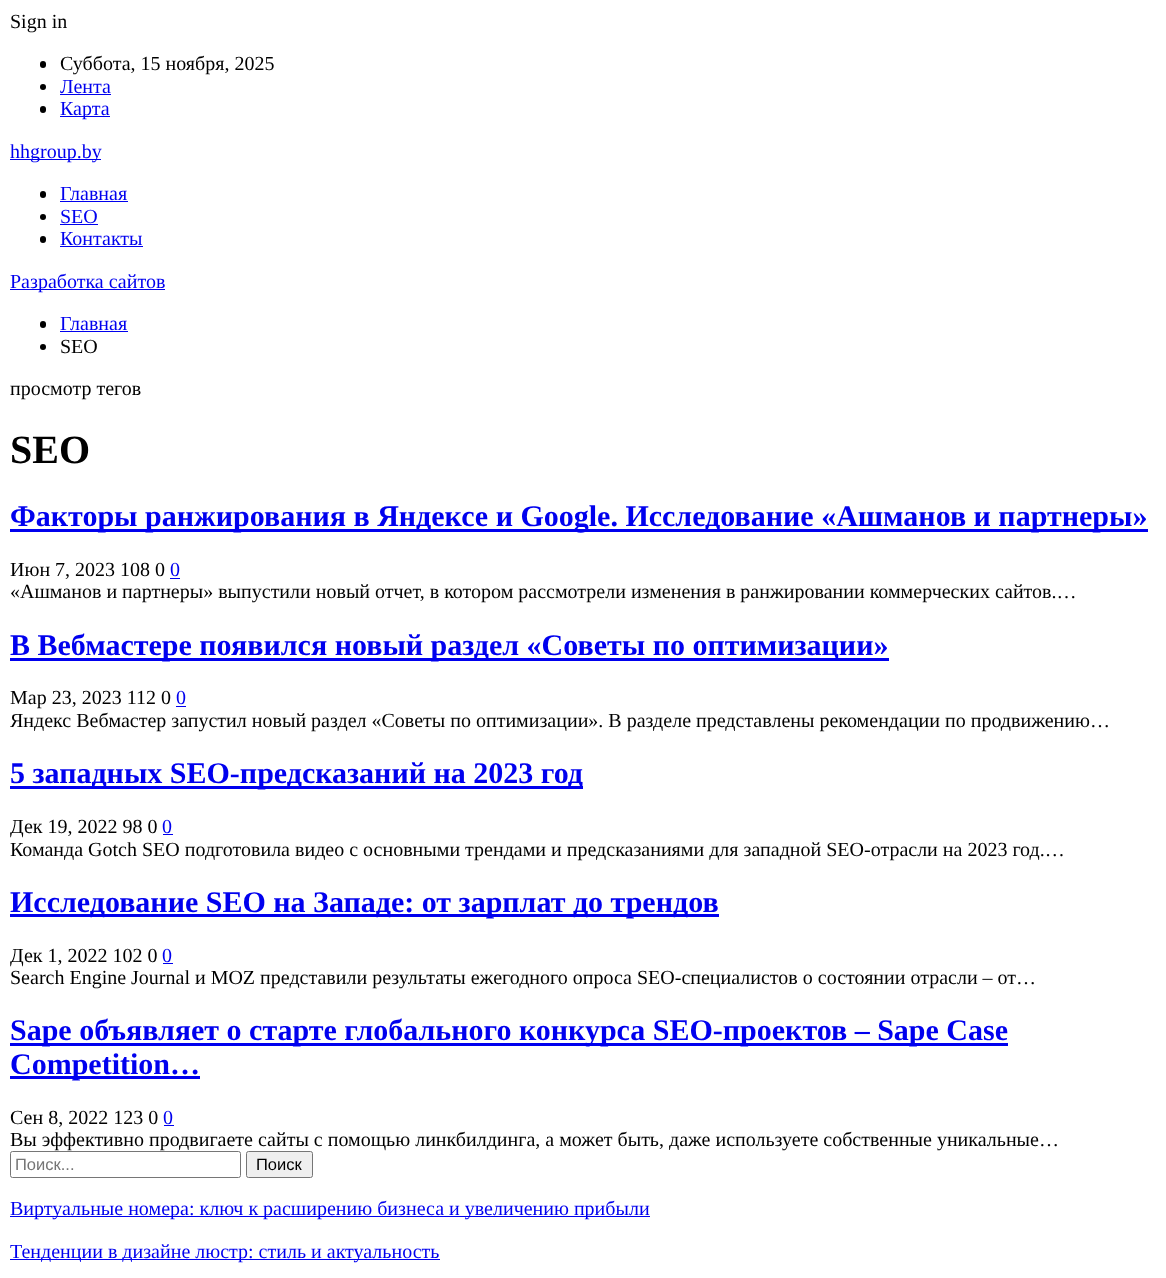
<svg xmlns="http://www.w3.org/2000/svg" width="1166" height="1278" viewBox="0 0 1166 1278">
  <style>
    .t1 { font: 20px Liberation Serif; fill: #000; }
    .t2 { font: 20px Liberation Serif; fill: #00e; }
    .t3 { font: bold 40px Liberation Serif; fill: #000; }
    .t4 { font: bold 30px Liberation Serif; fill: #00e; }
    .t5 { font: 16.5px Liberation Sans; fill: #757575; }
    .t6 { font: 16.5px Liberation Sans; fill: #000; }
  </style>
  <rect width="100%" height="100%" fill="#fff"/>
  <text x="10" y="28" class="t1">Sign in</text>
  <rect x="40" y="61" width="6" height="7" rx="3" fill="#000"/>
  <text x="60" y="70" class="t1">Суббота, 15 ноября, 2025</text>
  <circle cx="43" cy="87" r="3" fill="#000"/>
  <text x="60" y="93" class="t2">Лента</text>
  <rect x="60" y="94" width="51" height="1" fill="#00e"/>
  <rect x="40" y="106" width="6" height="7" rx="3" fill="#000"/>
  <rect x="60" y="116" width="50" height="1" fill="#00e"/>
  <text x="60" y="115" class="t2">Карта</text>
  <rect x="10" y="159" width="91" height="1" fill="#00e"/>
  <text x="10" y="158" class="t2">hhgroup.by</text>
  <rect x="40" y="191" width="6" height="7" rx="3" fill="#000"/>
  <text x="60" y="200" class="t2">Главная</text>
  <rect x="60" y="201" width="68" height="1" fill="#00e"/>
  <circle cx="43" cy="217" r="3" fill="#000"/>
  <text x="60" y="223" class="t2">SEO</text>
  <rect x="60" y="224" width="38" height="1" fill="#00e"/>
  <rect x="40" y="236" width="6" height="7" rx="3" fill="#000"/>
  <text x="60" y="245" class="t2">Контакты</text>
  <rect x="60" y="246" width="83" height="1" fill="#00e"/>
  <rect x="10" y="289" width="155" height="1" fill="#00e"/>
  <text x="10" y="288" class="t2">Разработка сайтов</text>
  <rect x="40" y="321" width="6" height="7" rx="3" fill="#000"/>
  <text x="60" y="330" class="t2">Главная</text>
  <rect x="60" y="331" width="68" height="1" fill="#00e"/>
  <circle cx="43" cy="347" r="3" fill="#000"/>
  <text x="60" y="353" class="t1">SEO</text>
  <text x="10" y="395" class="t1">просмотр тегов</text>
  <text x="10" y="463" class="t3">SEO</text>
  <rect x="10" y="529" width="1138" height="3" fill="#00e"/>
  <text x="10" y="526" class="t4">Факторы ранжирования в Яндексе и Google. Исследование «Ашманов и партнеры»</text>
  <text x="10" y="576" class="t1">Июн 7, 2023 108 0</text>
  <text x="170" y="576" class="t2">0</text>
  <rect x="170" y="578" width="10" height="1" fill="#00e"/>
  <text x="10" y="598" class="t1">«Ашманов и партнеры» выпустили новый отчет, в котором рассмотрели изменения в ранжировании коммерчеcких сайтов.…</text>
  <rect x="10" y="658" width="879" height="3" fill="#00e"/>
  <text x="10" y="655" class="t4">В Вебмастере появился новый раздел «Советы по оптимизации»</text>
  <text x="10" y="704" class="t1">Мар 23, 2023 112 0</text>
  <text x="176" y="704" class="t2">0</text>
  <rect x="176" y="706" width="10" height="1" fill="#00e"/>
  <text x="10" y="727" class="t1">Яндекс Вебмастер запустил новый раздел «Советы по оптимизации». В разделе представлены рекомендации по продвижению…</text>
  <rect x="10" y="786" width="573" height="3" fill="#00e"/>
  <text x="10" y="783" class="t4">5 западных SEO-предсказаний на 2023 год</text>
  <text x="10" y="833" class="t1">Дек 19, 2022 98 0</text>
  <text x="162" y="833" class="t2">0</text>
  <rect x="163" y="834" width="10" height="1" fill="#00e"/>
  <text x="10" y="856" class="t1">Команда Gotch SEO подготовила видео с основными трендами и предсказаниями для западной SEO-отрасли на 2023 год.…</text>
  <rect x="10" y="914" width="709" height="3" fill="#00e"/>
  <text x="10" y="912" class="t4">Исследование SEO на Западе: от зарплат до трендов</text>
  <text x="10" y="962" class="t1">Дек 1, 2022 102 0</text>
  <text x="162" y="962" class="t2">0</text>
  <rect x="163" y="963" width="10" height="1" fill="#00e"/>
  <text x="10" y="984" class="t1">Search Engine Journal и MOZ представили результаты ежегодного опроса SEO-специалистов о состоянии отрасли – от…</text>
  <rect x="10" y="1043" width="998" height="3" fill="#00e"/>
  <text x="10" y="1040" class="t4">Sape объявляет о старте глобального конкурса SEO-проектов – Sape Case</text>
  <rect x="10" y="1076" width="190" height="3" fill="#00e"/>
  <text x="10" y="1074" class="t4">Competition…</text>
  <text x="10" y="1124" class="t1">Сен 8, 2022 123 0</text>
  <text x="163" y="1124" class="t2">0</text>
  <rect x="164" y="1125" width="10" height="1" fill="#00e"/>
  <text x="10" y="1146" class="t1">Вы эффективно продвигаете сайты с помощью линкбилдинга, а может быть, даже используете собственные уникальные…</text>
  <rect x="10.5" y="1151.5" width="230" height="26" rx="2" fill="none" stroke="#767676"/>
  <text x="15" y="1170" class="t5">Поиск...</text>
  <rect x="246.5" y="1151.5" width="66" height="26" rx="2" fill="#efefef" stroke="#767676"/>
  <text x="256" y="1170" class="t6">Поиск</text>
  <rect x="10" y="1216" width="640" height="1" fill="#00e"/>
  <text x="10" y="1215" class="t2">Виртуальные номера: ключ к расширению бизнеса и увеличению прибыли</text>
  <rect x="10" y="1259" width="430" height="1" fill="#00e"/>
  <text x="10" y="1258" class="t2">Тенденции в дизайне люстр: стиль и актуальность</text>
</svg>
